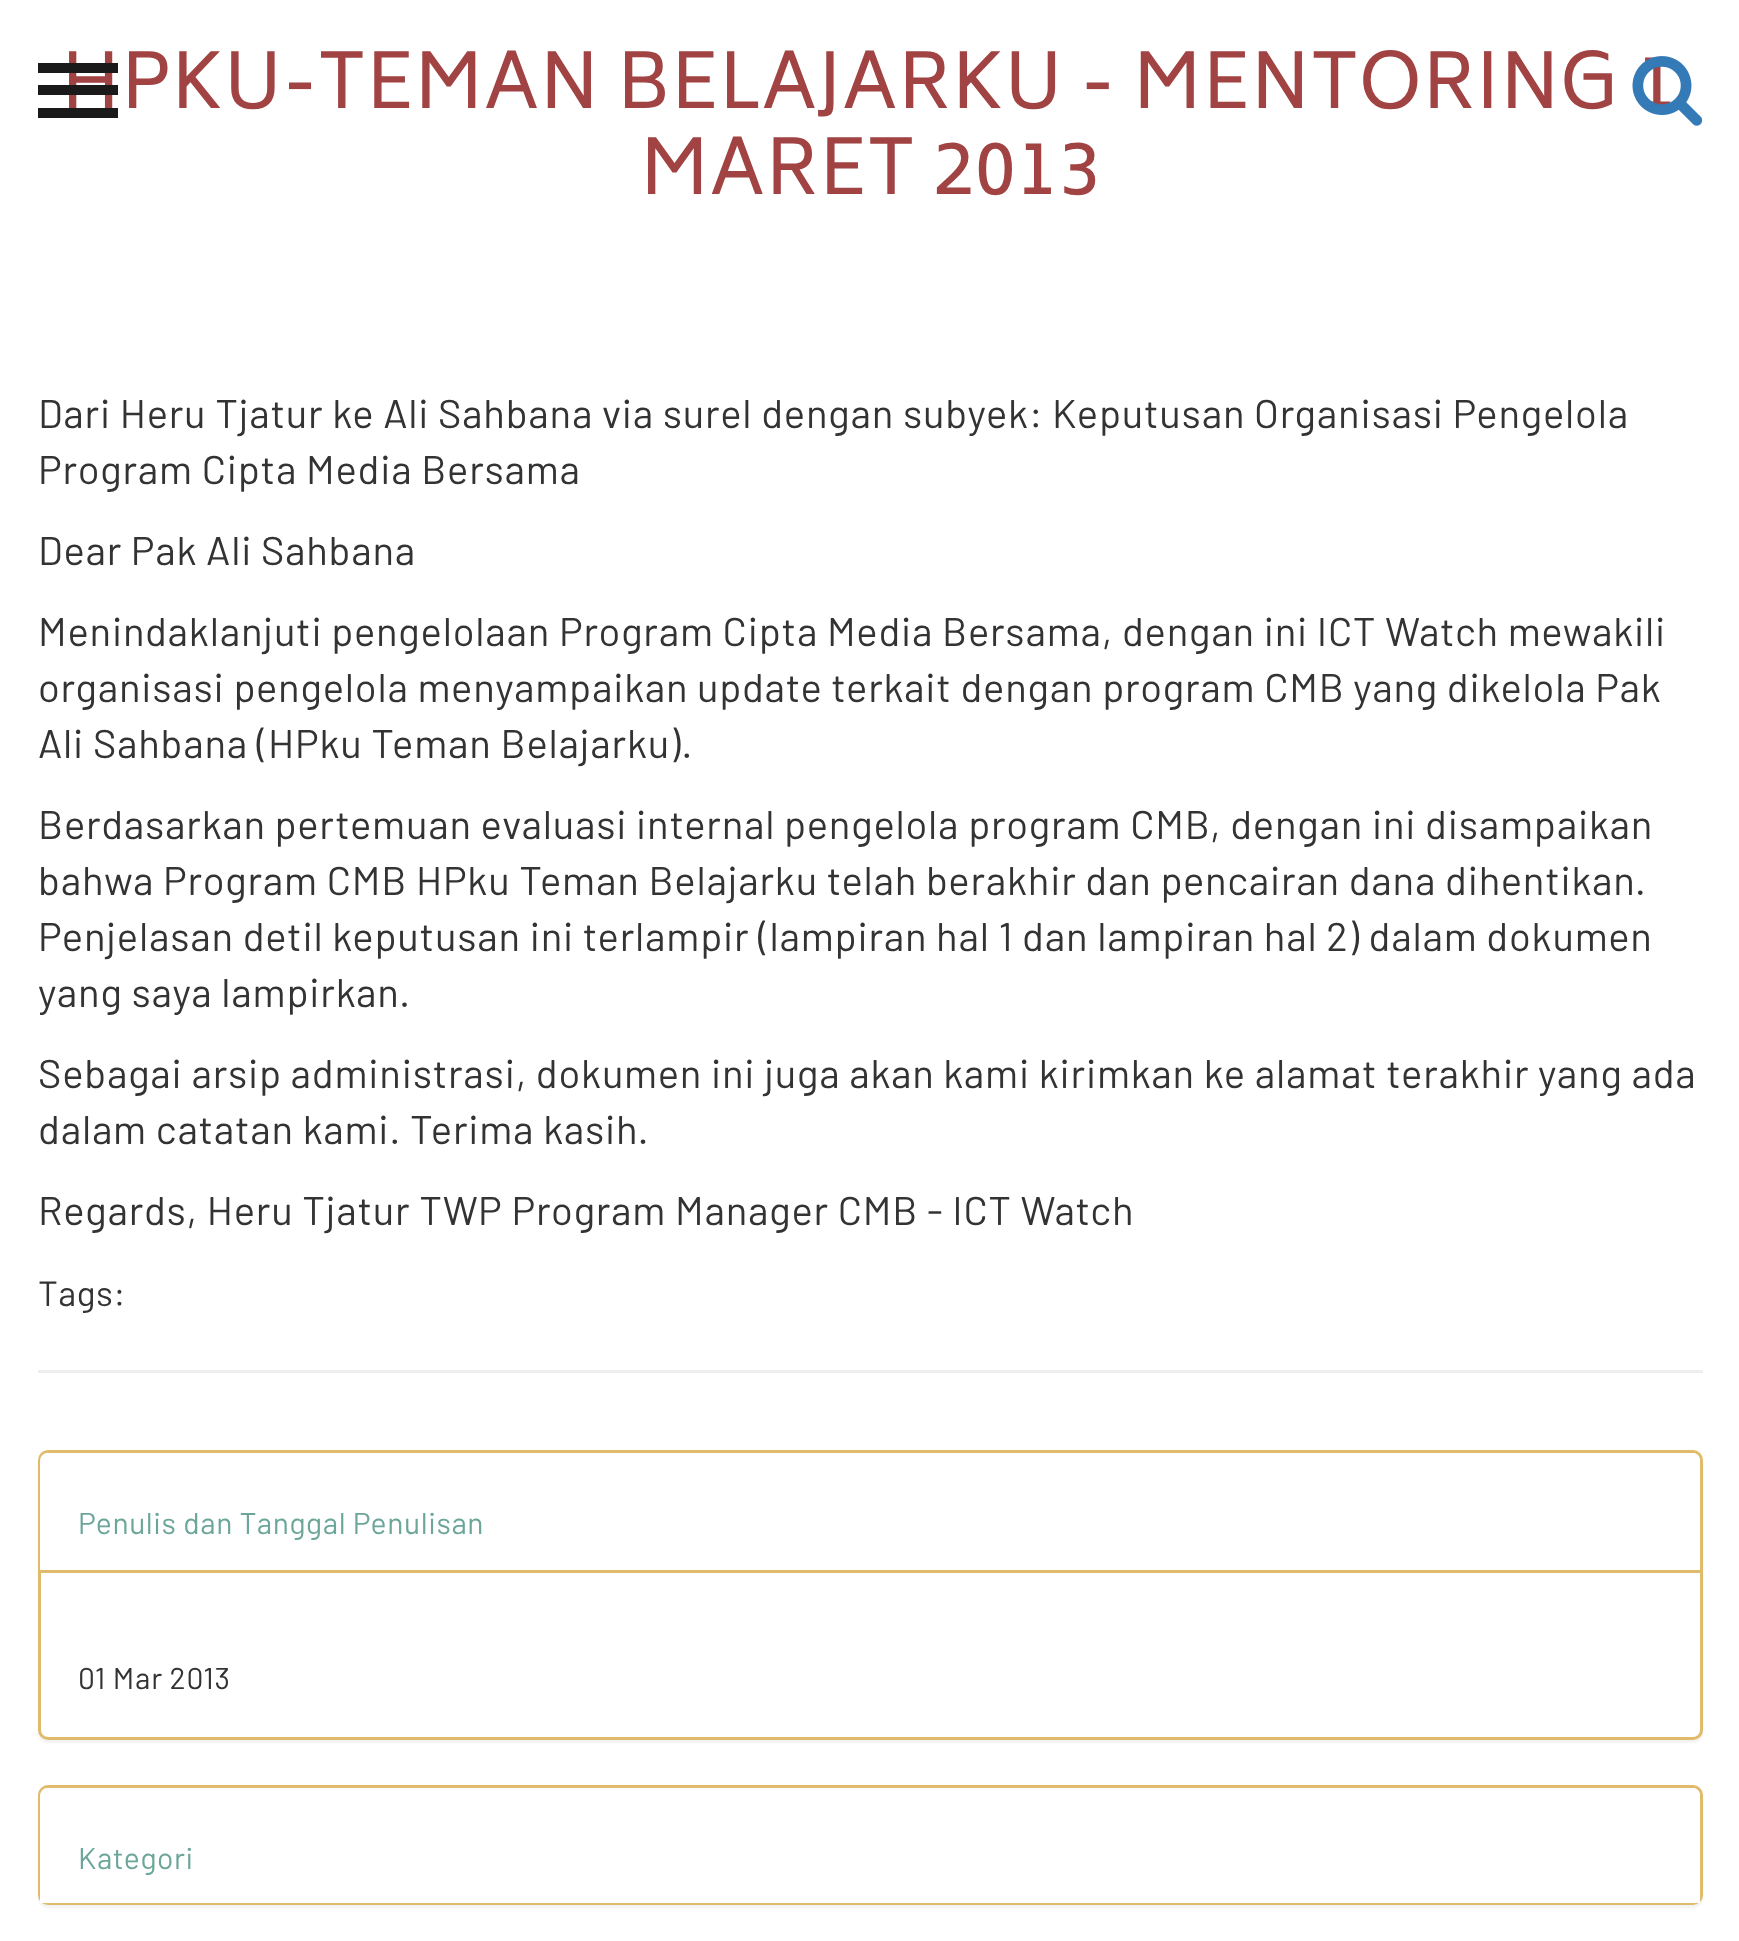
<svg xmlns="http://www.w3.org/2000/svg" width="1739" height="1941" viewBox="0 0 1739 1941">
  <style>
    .t1 { font: 75px Biryani; letter-spacing: 0.75px; fill: #a14243; }
    .t2 { font: 40px Barlow; letter-spacing: 0.8px; fill: #333; }
    .t3 { font: 35px Barlow; letter-spacing: 0.75px; fill: #333; }
    .t4 { font: 30px Barlow; letter-spacing: 0.6px; fill: #6ca59a; }
    .t5 { font: 30px Barlow; letter-spacing: 0.75px; fill: #333; }
  </style>
  <rect width="100%" height="100%" fill="#fff"/>
  <text x="61" y="108" class="t1">HPKU-TEMAN BELAJARKU - MENTORING 1</text>
  <text x="640" y="194" class="t1">MARET 2013</text>
  <text x="38" y="428" class="t2">Dari Heru Tjatur ke Ali Sahbana via surel dengan subyek: Keputusan Organisasi Pengelola</text>
  <text x="38" y="484" class="t2">Program Cipta Media Bersama</text>
  <text x="38" y="565" class="t2">Dear Pak Ali Sahbana</text>
  <text x="38" y="646" class="t2">Menindaklanjuti pengelolaan Program Cipta Media Bersama, dengan ini ICT Watch mewakili</text>
  <text x="38" y="702" class="t2">organisasi pengelola menyampaikan update terkait dengan program CMB yang dikelola Pak</text>
  <text x="38" y="758" class="t2">Ali Sahbana (HPku Teman Belajarku).</text>
  <text x="38" y="839" class="t2">Berdasarkan pertemuan evaluasi internal pengelola program CMB, dengan ini disampaikan</text>
  <text x="38" y="895" class="t2">bahwa Program CMB HPku Teman Belajarku telah berakhir dan pencairan dana dihentikan.</text>
  <text x="38" y="951" class="t2">Penjelasan detil keputusan ini terlampir (lampiran hal 1 dan lampiran hal 2) dalam dokumen</text>
  <text x="38" y="1007" class="t2">yang saya lampirkan.</text>
  <text x="38" y="1088" class="t2">Sebagai arsip administrasi, dokumen ini juga akan kami kirimkan ke alamat terakhir yang ada</text>
  <text x="38" y="1144" class="t2">dalam catatan kami. Terima kasih.</text>
  <text x="38" y="1225" class="t2">Regards, Heru Tjatur TWP Program Manager CMB - ICT Watch</text>
  <text x="38" y="1306" class="t3">Tags:</text>
  <rect x="38" y="1370" width="1665" height="3" fill="#eee"/>
  <rect x="38" y="1453" width="1665" height="290" rx="10" fill="#0000000d" filter="blur(1px)"/>
  <rect x="39.5" y="1451.5" width="1662" height="287" rx="8.5" fill="#fff" stroke="#e0bb6b" stroke-width="3"/>
  <path d="M48 1453H1692C1696.5 1453 1700 1456.5 1700 1461V1570H40V1461C40 1456.5 43.5 1453 48 1453Z" fill="#fff"/>
  <text x="78" y="1534" class="t4">Penulis dan Tanggal Penulisan</text>
  <rect x="40" y="1570" width="1660" height="3" fill="#e0bb6b"/>
  <text x="78" y="1689" class="t5">01 Mar 2013</text>
  <rect x="38" y="1788" width="1665" height="120" rx="10" fill="#0000000d" filter="blur(1px)"/>
  <rect x="39.5" y="1786.5" width="1662" height="117" rx="8.5" fill="#fff" stroke="#e0bb6b" stroke-width="3"/>
  <path d="M48 1788H1692C1696.5 1788 1700 1791.5 1700 1796V1903H40V1796C40 1791.5 43.5 1788 48 1788Z" fill="#fff"/>
  <text x="78" y="1869" class="t4">Kategori</text>
  <rect x="38" y="63" width="80" height="10" fill="#1a1a1a"/>
  <rect x="38" y="85" width="80" height="10" fill="#1a1a1a"/>
  <rect x="38" y="108" width="80" height="10" fill="#1a1a1a"/>
  <image x="1632" y="56" width="71" height="70" href="images/1.png"/>
</svg>
